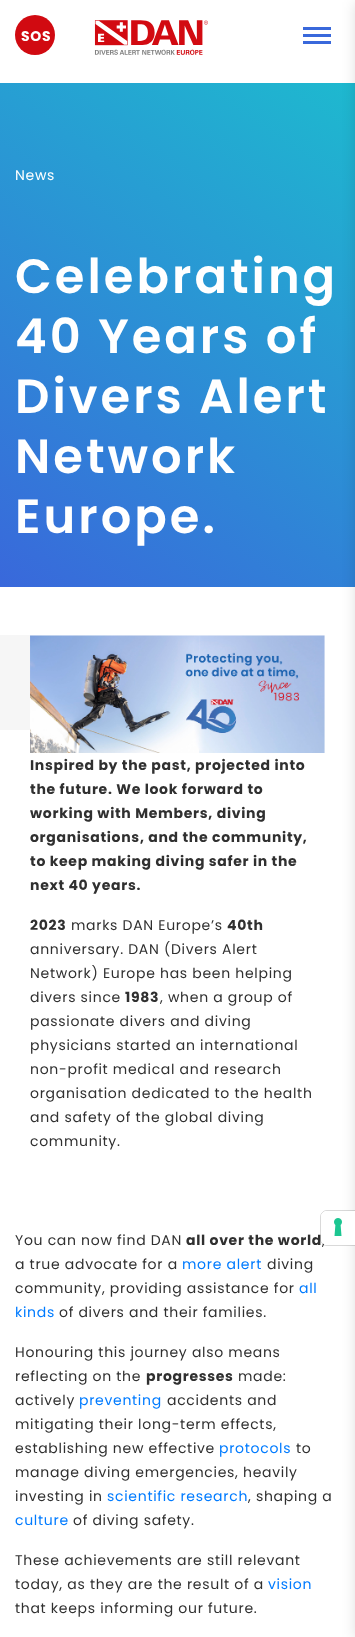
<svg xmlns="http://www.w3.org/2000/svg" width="355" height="1637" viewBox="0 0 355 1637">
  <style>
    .t1 { font: bold 14px Poppins; letter-spacing: 0.7px; fill: #fff; }
    .t2 { font: 14px Poppins; letter-spacing: 0.7px; fill: #fff; }
    .t3 { font: 600 48px Poppins; letter-spacing: 3px; fill: #fff; }
    .t4 { font: bold 14px Poppins; letter-spacing: 0.7px; fill: #303030; }
    .t5 { font: 14px Poppins; letter-spacing: 0.7px; fill: #303030; }
    .t6 { font: 14px Poppins; letter-spacing: 0.7px; fill: #007bff; }
  </style>
  <defs>
    <linearGradient id="g1" gradientUnits="userSpaceOnUse" x1="350" y1="80" x2="5.2" y2="590"><stop offset="0" stop-color="#1eb9cf"/><stop offset="1" stop-color="#3968db"/></linearGradient>
  </defs>
  <rect width="100%" height="100%" fill="#fff"/>
  <circle cx="35" cy="35" r="20" fill="#d10a11"/>
  <text x="21" y="41" class="t1">SOS</text>
  <image x="94" y="20" width="114" height="35" href="images/1.png"/>
  <image x="303" y="27" width="28" height="17" href="images/2.png"/>
  <rect x="0" y="83" width="355" height="504" fill="url(#g1)"/>
  <rect x="355" y="2" width="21" height="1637" fill="#0000001f" filter="blur(7px)"/>
  <text x="15" y="180" class="t2">News</text>
  <text x="15" y="293" class="t3">Celebrating</text>
  <text x="15" y="353" class="t3">40 Years of</text>
  <text x="15" y="413" class="t3">Divers Alert</text>
  <text x="15" y="473" class="t3">Network</text>
  <text x="15" y="533" class="t3">Europe.</text>
  <rect x="0" y="635" width="30" height="95" fill="#f6f6f6"/>
  <image x="30" y="635" width="295" height="118" href="images/3.png"/>
  <text x="30" y="770" class="t4">Inspired by the past, projected into</text>
  <text x="30" y="794" class="t4">the future. We look forward to</text>
  <text x="30" y="818" class="t4">working with Members, diving</text>
  <text x="30" y="842" class="t4">organisations, and the community,</text>
  <text x="30" y="866" class="t4">to keep making diving safer in the</text>
  <text x="30" y="890" class="t4">next 40 years.</text>
  <text x="30" y="930" class="t4">2023</text>
  <text x="71" y="930" class="t5">marks DAN Europe’s</text>
  <text x="227" y="930" class="t4">40th</text>
  <text x="30" y="954" class="t5">anniversary. DAN (Divers Alert</text>
  <text x="30" y="978" class="t5">Network) Europe has been helping</text>
  <text x="30" y="1002" class="t5">divers since</text>
  <text x="125" y="1002" class="t4">1983</text>
  <text x="160" y="1002" class="t5">, when a group of</text>
  <text x="30" y="1026" class="t5">passionate divers and diving</text>
  <text x="30" y="1050" class="t5">physicians started an international</text>
  <text x="30" y="1074" class="t5">non-profit medical and research</text>
  <text x="30" y="1098" class="t5">organisation dedicated to the health</text>
  <text x="30" y="1122" class="t5">and safety of the global diving</text>
  <text x="30" y="1146" class="t5">community.</text>
  <text x="15" y="1245" class="t5">You can now find DAN</text>
  <text x="186" y="1245" class="t4">all over the world</text>
  <text x="322" y="1245" class="t5">,</text>
  <text x="15" y="1269" class="t5">a true advocate for a</text>
  <text x="182" y="1269" class="t6">more alert</text>
  <text x="267" y="1269" class="t5">diving</text>
  <text x="15" y="1293" class="t5">community, providing assistance for</text>
  <text x="299" y="1293" class="t6">all</text>
  <text x="15" y="1317" class="t6">kinds</text>
  <text x="59" y="1317" class="t5">of divers and their families.</text>
  <text x="15" y="1357" class="t5">Honouring this journey also means</text>
  <text x="15" y="1381" class="t5">reflecting on the</text>
  <text x="146" y="1381" class="t4">progresses</text>
  <text x="238" y="1381" class="t5">made:</text>
  <text x="15" y="1405" class="t5">actively</text>
  <text x="79" y="1405" class="t6">preventing</text>
  <text x="167" y="1405" class="t5">accidents and</text>
  <text x="15" y="1429" class="t5">mitigating their long-term effects,</text>
  <text x="15" y="1453" class="t5">establishing new effective</text>
  <text x="219" y="1453" class="t6">protocols</text>
  <text x="296" y="1453" class="t5">to</text>
  <text x="15" y="1477" class="t5">manage diving emergencies, heavily</text>
  <text x="15" y="1501" class="t5">investing in</text>
  <text x="107" y="1501" class="t6">scientific research</text>
  <text x="248" y="1501" class="t5">, shaping a</text>
  <text x="15" y="1525" class="t6">culture</text>
  <text x="73" y="1525" class="t5">of diving safety.</text>
  <text x="15" y="1565" class="t5">These achievements are still relevant</text>
  <text x="15" y="1589" class="t5">today, as they are the result of a</text>
  <text x="268" y="1589" class="t6">vision</text>
  <text x="15" y="1613" class="t5">that keeps informing our future.</text>
  <path d="M327 1210.5H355.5V1245.5H327C323.5 1245.5 320.5 1242.5 320.5 1239V1217C320.5 1213.5 323.5 1210.5 327 1210.5Z" fill="none" stroke="#00000026"/>
  <path d="M327 1211H355V1245H327C323.5 1245 321 1242.5 321 1239V1217C321 1213.5 323.5 1211 327 1211Z" fill="#fff"/>
  <image x="334" y="1218" width="8" height="18" href="images/4.png"/>
</svg>
